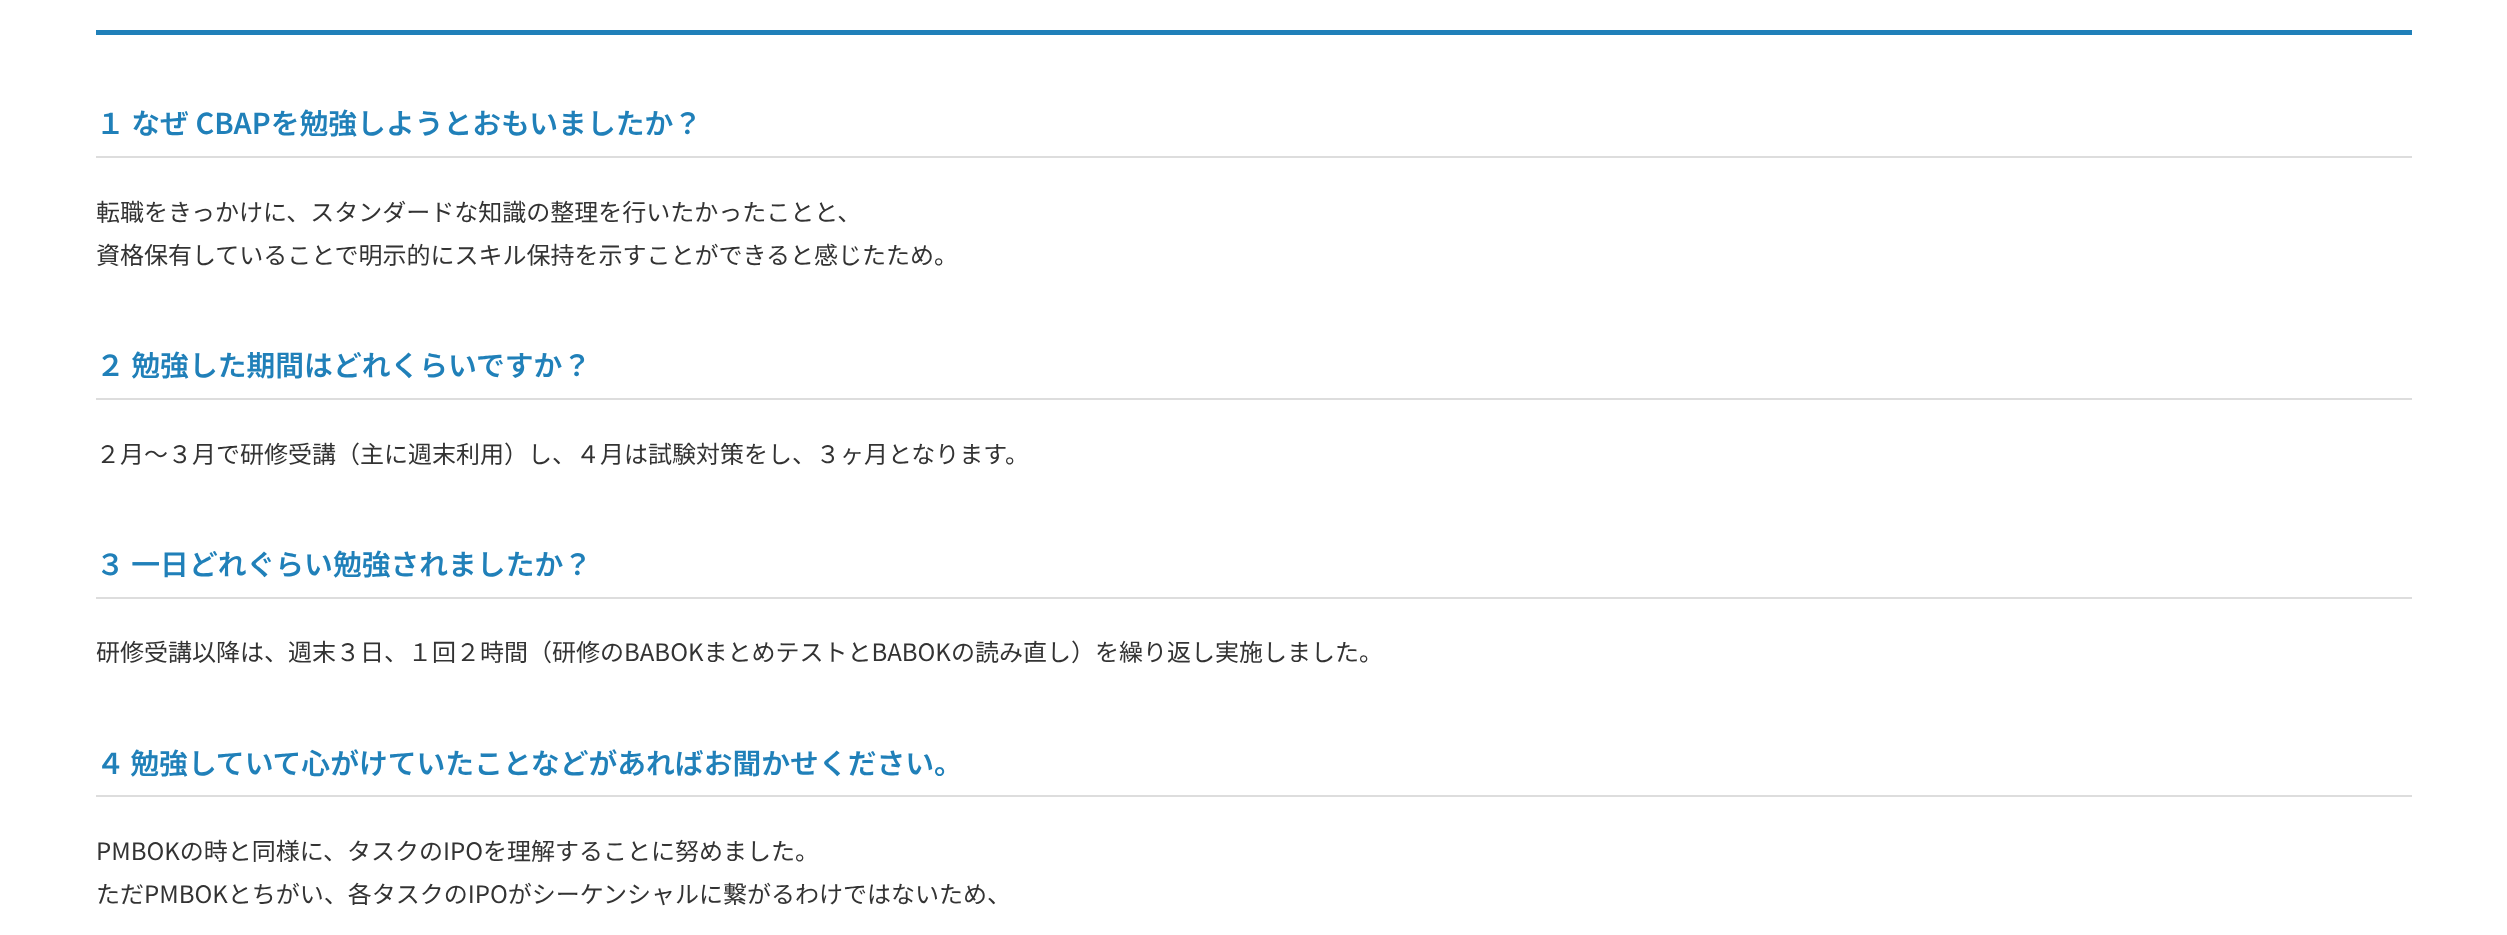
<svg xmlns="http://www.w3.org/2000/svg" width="2507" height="935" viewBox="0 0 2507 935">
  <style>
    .t1 { font: 600 28.8px Noto Sans JP; fill: #2080b9; }
    .t2 { font: 24px Noto Sans JP; fill: #333; }
  </style>
  <rect width="100%" height="100%" fill="#fff"/>
  <rect x="96" y="30" width="2316" height="5" fill="#2080b9"/>
  <text x="96" y="134" class="t1">１ なぜ CBAPを勉強しようとおもいましたか？</text>
  <rect x="96" y="156" width="2316" height="2" fill="#ddd"/>
  <text x="96" y="221" class="t2">転職をきっかけに、スタンダードな知識の整理を行いたかったことと、</text>
  <text x="96" y="264" class="t2">資格保有していることで明示的にスキル保持を示すことができると感じたため。</text>
  <text x="96" y="376" class="t1">２ 勉強した期間はどれくらいですか？</text>
  <rect x="96" y="398" width="2316" height="2" fill="#ddd"/>
  <text x="96" y="463" class="t2">２月〜３月で研修受講（主に週末利用）し、４月は試験対策をし、３ヶ月となります。</text>
  <text x="96" y="575" class="t1">３ 一日どれぐらい勉強されましたか？</text>
  <rect x="96" y="597" width="2316" height="2" fill="#ddd"/>
  <text x="96" y="661" class="t2">研修受講以降は、週末３日、１回２時間（研修のBABOKまとめテストとBABOKの読み直し）を繰り返し実施しました。</text>
  <text x="96" y="774" word-spacing="-1" class="t1">４ 勉強していて心がけていたことなどがあればお聞かせください。</text>
  <rect x="96" y="795" width="2316" height="2" fill="#ddd"/>
  <text x="96" y="860" class="t2">PMBOKの時と同様に、タスクのIPOを理解することに努めました。</text>
  <text x="96" y="903" class="t2">ただPMBOKとちがい、各タスクのIPOがシーケンシャルに繋がるわけではないため、</text>
</svg>
